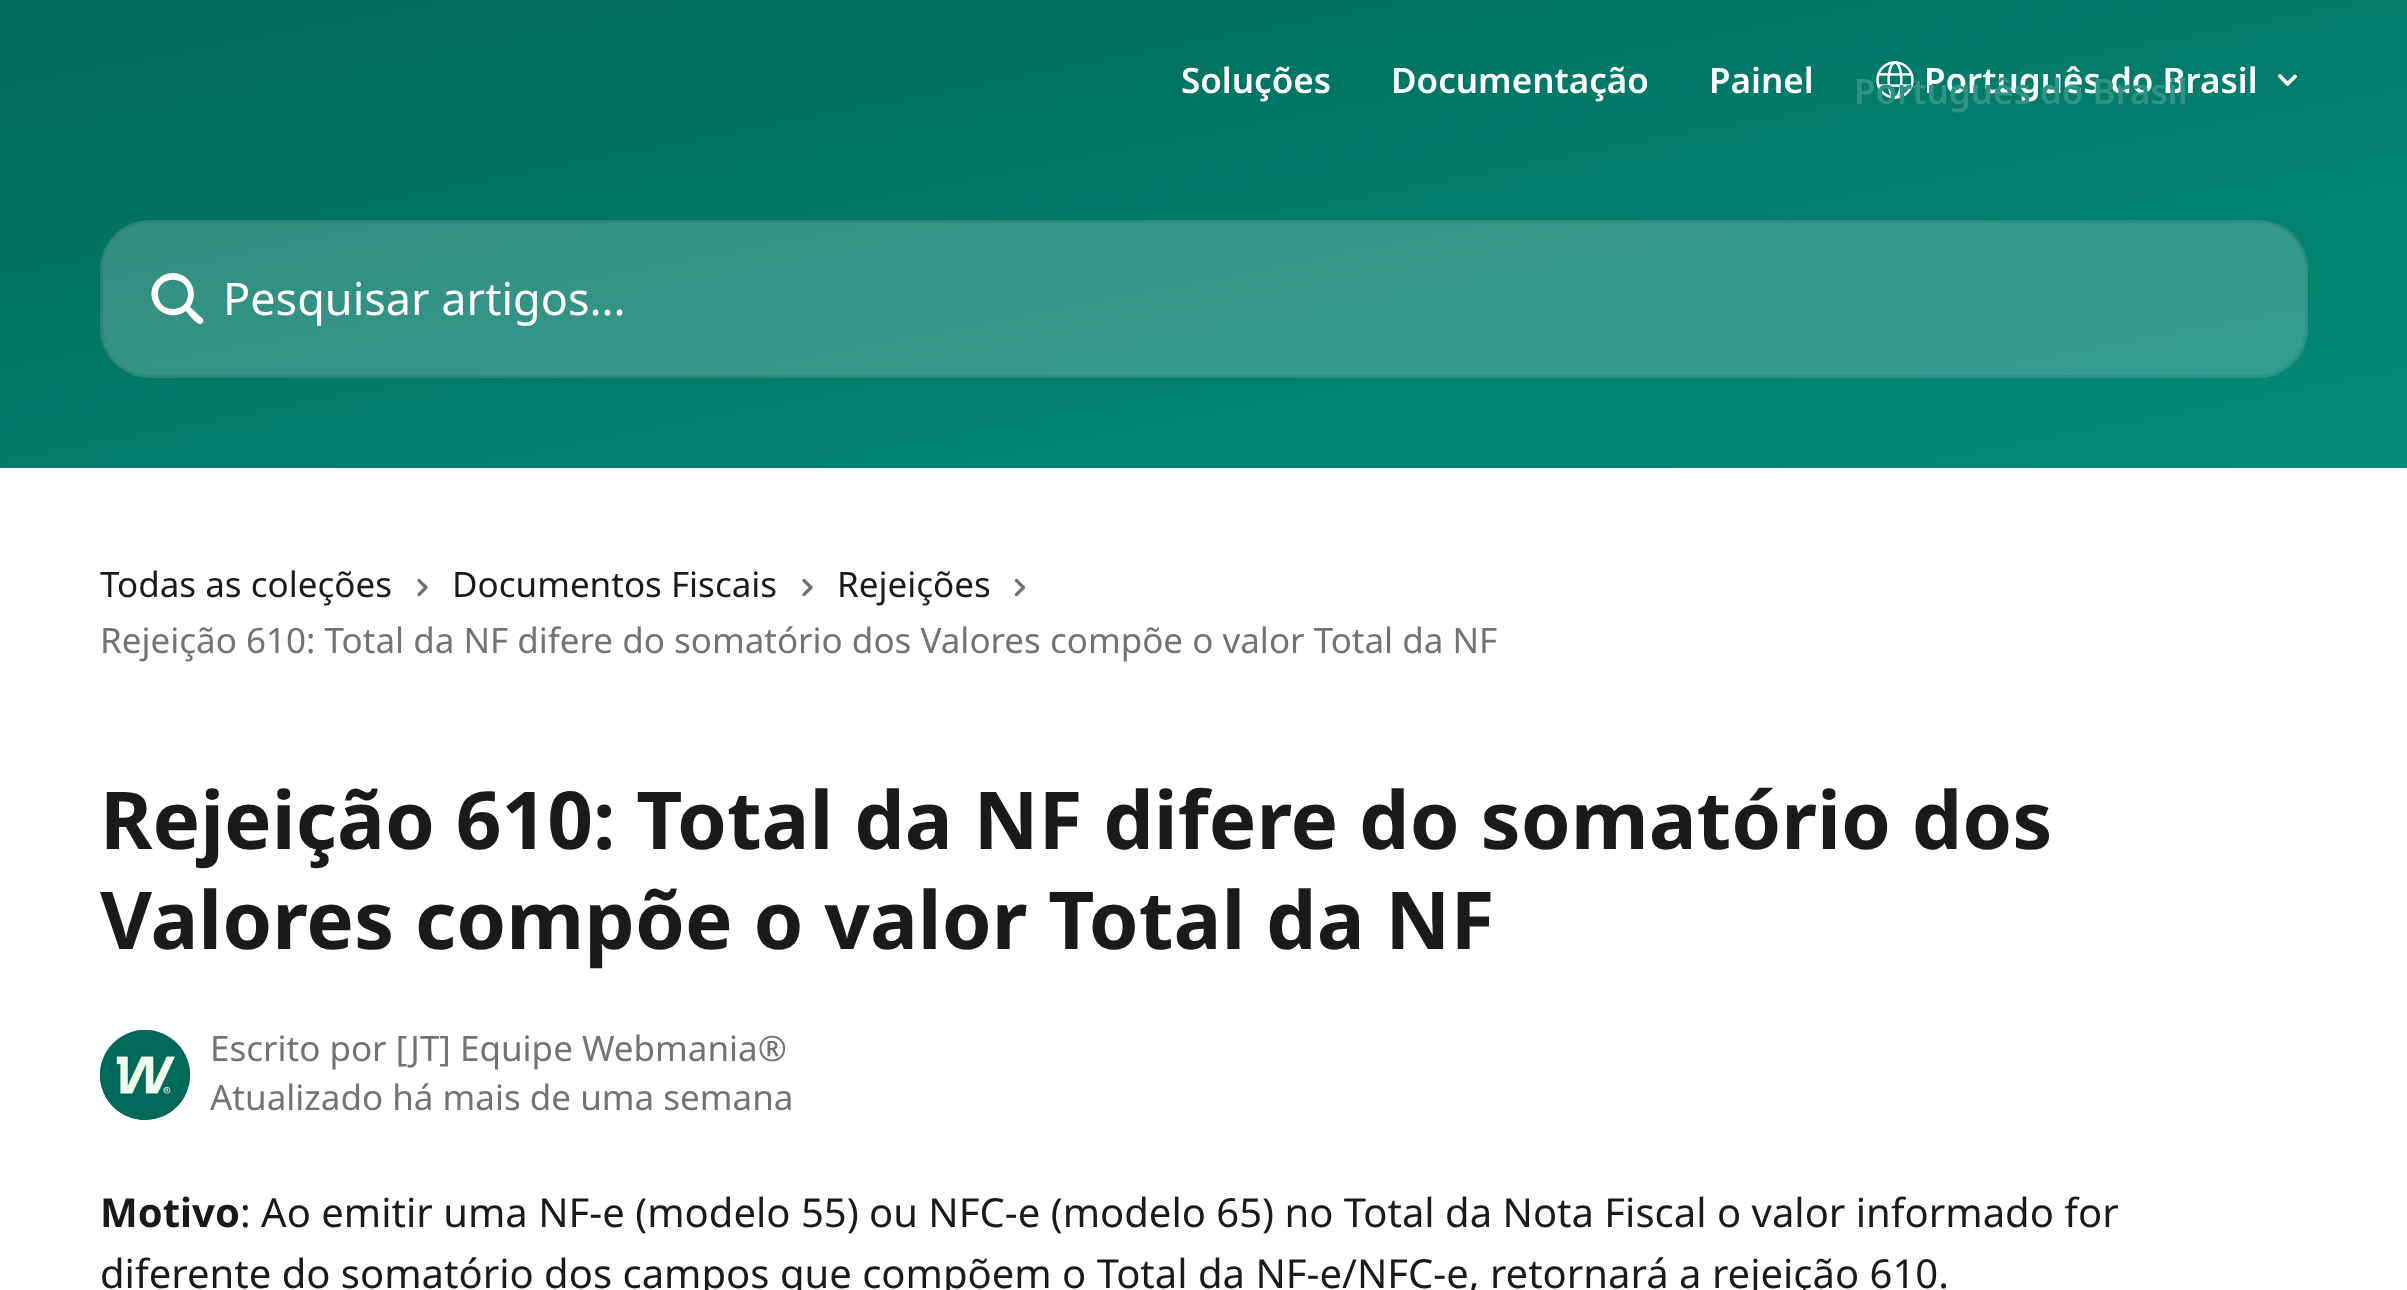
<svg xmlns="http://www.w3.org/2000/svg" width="2407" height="1290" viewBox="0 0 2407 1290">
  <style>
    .t1 { font: 600 35px Noto Sans; fill: #fff; }
    .t2 { font: 600 35px Noto Sans; fill: #309385; }
    .t3 { font: 45px Noto Sans; fill: #fff; }
    .t4 { font: 35px Noto Sans; fill: #1a1a1a; }
    .t5 { font: 35px Noto Sans; fill: #737373; }
    .t6 { font: bold 80px Noto Sans; fill: #1a1a1a; }
    .t7 { font: bold 40px Noto Sans; fill: #1a1a1a; }
    .t8 { font: 40px Noto Sans; fill: #1a1a1a; }
  </style>
  <defs>
    <linearGradient id="g1" gradientUnits="userSpaceOnUse" x1="1116" y1="-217" x2="1291" y2="684"><stop offset="0" stop-color="#00695a"/><stop offset="1" stop-color="#038c78"/></linearGradient>
  </defs>
  <rect width="100%" height="100%" fill="#fff"/>
  <rect x="0" y="0" width="2407" height="468" fill="url(#g1)"/>
  <text x="1181" y="93" class="t1">Soluções</text>
  <text x="1391" y="93" class="t1">Documentação</text>
  <text x="1709" y="93" class="t1">Painel</text>
  <image x="1876" y="61" width="38" height="38" href="images/1.png"/>
  <text x="1924" y="93" class="t1">Português do Brasil</text>
  <path d="M2280 76L2287.5 84L2295 76.5" fill="none" stroke="#fff" stroke-width="3.8" stroke-linecap="round" stroke-linejoin="round"/>
  <text x="1854" y="104" class="t2">Português do Brasil</text>
  <rect x="100" y="220" width="2208" height="158" rx="50" fill="#ffffff33"/>
  <rect x="101.5" y="221.5" width="2205" height="155" rx="48.5" fill="none" stroke="#00000014" stroke-width="3"/>
  <path d="M158 294C158 275 188 275 188 294C188 314 158 314 158 294ZM173 273C167 273 162 275 158 279C139 298 165 326 186 311C188 314 198 326 201 324C203 323 204 321 203 319L190 307C200 293 190 273 173 273Z" fill="#fff" fill-rule="evenodd"/>
  <text x="223" y="315" class="t3">Pesquisar artigos...</text>
  <text x="100" y="597" class="t4">Todas as coleções</text>
  <image x="417" y="578" width="11" height="19" href="images/2.png"/>
  <text x="452" y="597" class="t4">Documentos Fiscais</text>
  <image x="802" y="578" width="11" height="19" href="images/2.png"/>
  <text x="837" y="597" class="t4">Rejeições</text>
  <image x="1014" y="578" width="12" height="19" href="images/3.png"/>
  <text x="100" y="653" class="t5">Rejeição 610: Total da NF difere do somatório dos Valores compõe o valor Total da NF</text>
  <text x="100" y="849" class="t6">Rejeição 610: Total da NF difere do somatório dos</text>
  <text x="100" y="949" class="t6">Valores compõe o valor Total da NF</text>
  <circle cx="145" cy="1075" r="45" fill="#006b5b"/>
  <image x="100" y="1030" width="90" height="90" href="images/4.png"/>
  <text x="210" y="1061" class="t5">Escrito por [JT] Equipe Webmania®</text>
  <text x="210" y="1110" class="t5">Atualizado há mais de uma semana</text>
  <text x="100" y="1227" class="t7">Motivo</text>
  <text x="240" y="1227" class="t8">: Ao emitir uma NF-e (modelo 55) ou NFC-e (modelo 65) no Total da Nota Fiscal o valor informado for</text>
  <text x="100" y="1288" class="t8">diferente do somatório dos campos que compõem o Total da NF-e/NFC-e, retornará a rejeição 610.</text>
</svg>
